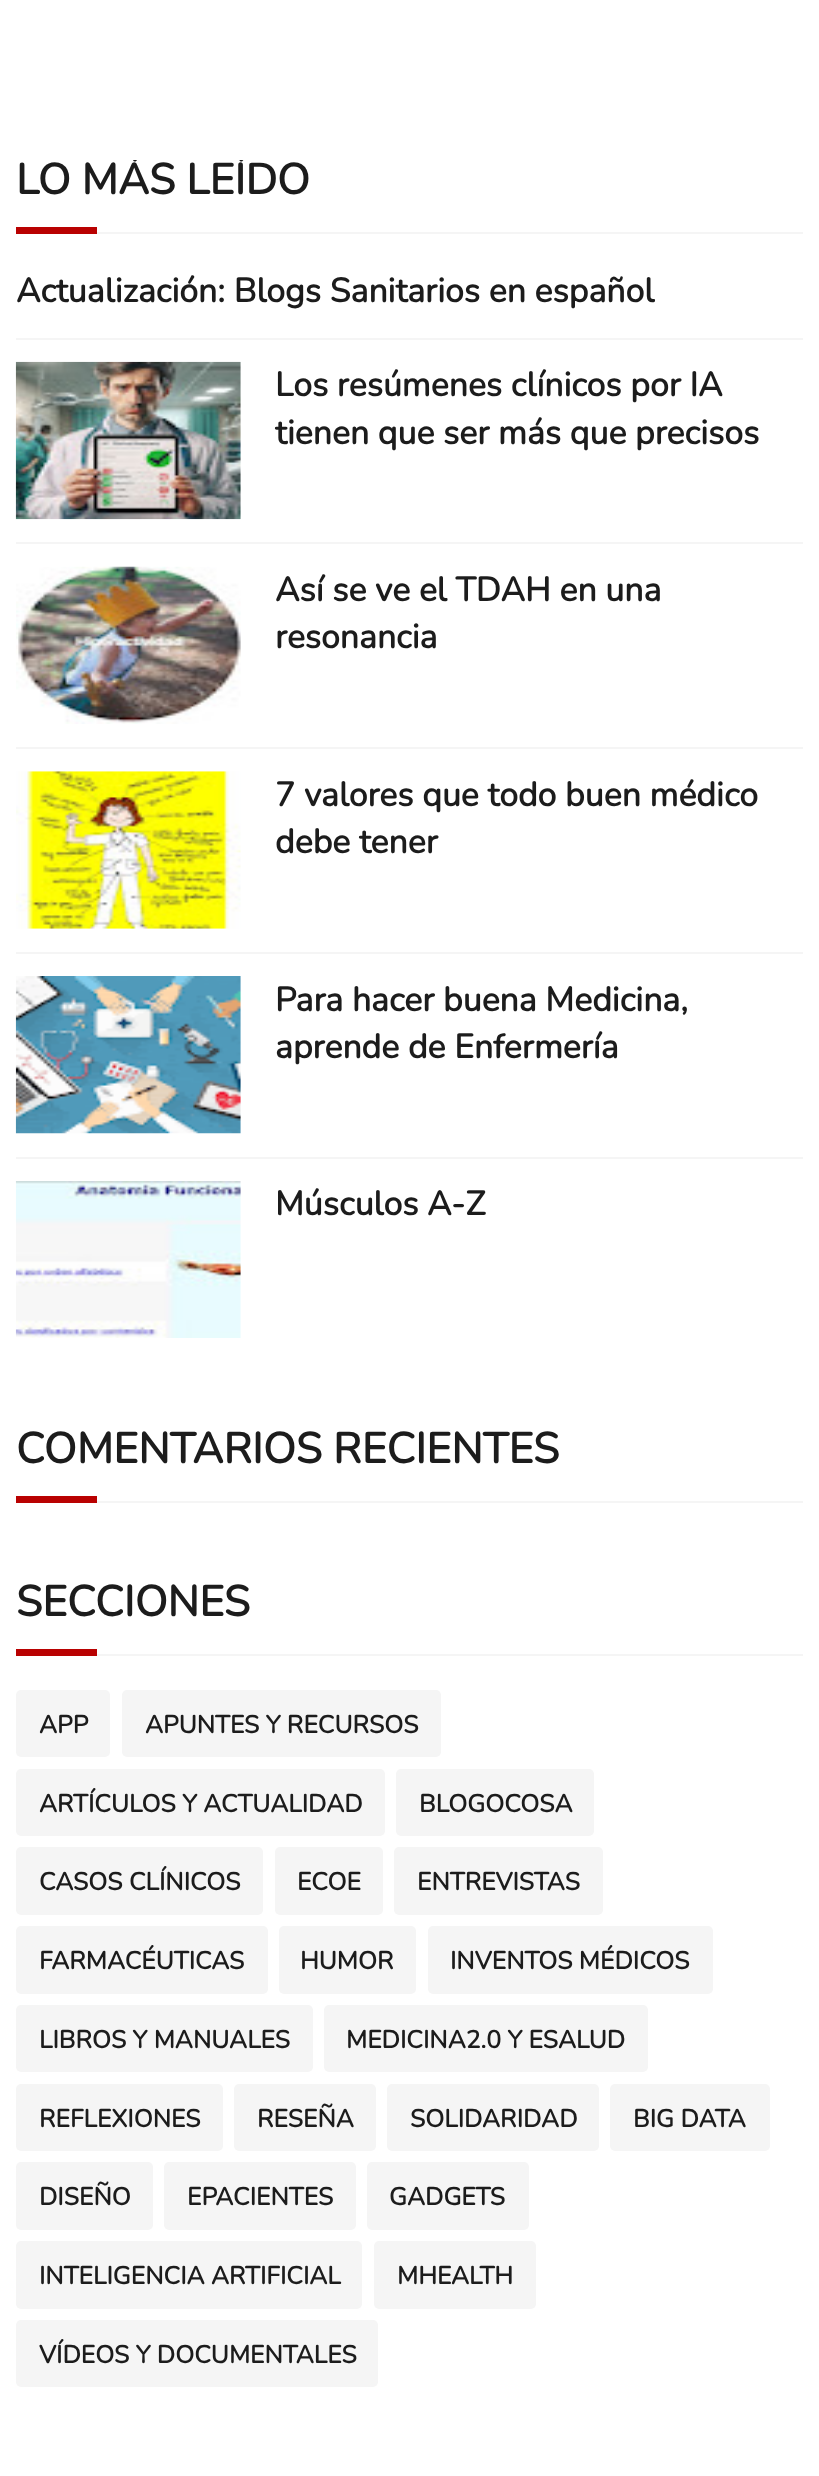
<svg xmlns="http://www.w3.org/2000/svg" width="819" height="2476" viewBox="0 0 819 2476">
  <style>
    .t1 { font: bold 42.75px Nunito; fill: #1c1c1c; }
    .t2 { font: bold 33.75px Nunito; fill: #1c1c1c; }
    .t3 { font: bold 24.75px Nunito; fill: #1c1c1c; }
  </style>
  <defs>
    <clipPath id="clip1"><rect x="16" y="160" width="787" height="1179"/></clipPath>
  </defs>
  <rect width="100%" height="100%" fill="#fff"/>
  <rect x="97" y="232" width="706" height="2" fill="#f5f5f5"/>
  <g clip-path="url(#clip1)">
    <text x="16" y="194" class="t1">LO MÁS LEÍDO</text>
  </g>
  <rect x="16" y="227" width="81" height="7" fill="#b90101"/>
  <text x="16" y="302" class="t2">Actualización: Blogs Sanitarios en español</text>
  <rect x="16" y="338" width="787" height="2" fill="#f5f5f5"/>
  <image x="15" y="361" width="226" height="159" href="images/1.png"/>
  <text x="275" y="396" class="t2">Los resúmenes clínicos por IA</text>
  <text x="275" y="444" class="t2">tienen que ser más que precisos</text>
  <rect x="16" y="542" width="787" height="2" fill="#f5f5f5"/>
  <image x="16" y="566" width="225" height="158" href="images/2.png"/>
  <text x="275" y="601" class="t2">Así se ve el TDAH en una</text>
  <text x="275" y="648" class="t2">resonancia</text>
  <rect x="16" y="747" width="787" height="2" fill="#f5f5f5"/>
  <image x="16" y="771" width="225" height="158" href="images/3.png"/>
  <text x="275" y="806" class="t2">7 valores que todo buen médico</text>
  <text x="275" y="853" class="t2">debe tener</text>
  <rect x="16" y="952" width="787" height="2" fill="#f5f5f5"/>
  <image x="15" y="976" width="226" height="158" href="images/4.png"/>
  <text x="275" y="1011" class="t2">Para hacer buena Medicina,</text>
  <text x="275" y="1058" class="t2">aprende de Enfermería</text>
  <rect x="16" y="1157" width="787" height="2" fill="#f5f5f5"/>
  <image x="15" y="1181" width="226" height="157" href="images/5.png"/>
  <text x="275" y="1215" class="t2">Músculos A-Z</text>
  <rect x="97" y="1501" width="706" height="2" fill="#f5f5f5"/>
  <text x="16" y="1463" class="t1">COMENTARIOS RECIENTES</text>
  <rect x="16" y="1496" width="81" height="7" fill="#b90101"/>
  <rect x="97" y="1654" width="706" height="2" fill="#f5f5f5"/>
  <text x="16" y="1616" class="t1">SECCIONES</text>
  <rect x="16" y="1649" width="81" height="7" fill="#b90101"/>
  <rect x="16" y="1690" width="94" height="67" rx="5" fill="#f5f5f5"/>
  <text x="39" y="1733" class="t3">APP</text>
  <rect x="122" y="1690" width="319" height="67" rx="5" fill="#f5f5f5"/>
  <text x="145" y="1733" class="t3">APUNTES Y RECURSOS</text>
  <rect x="16" y="1769" width="369" height="67" rx="5" fill="#f5f5f5"/>
  <text x="39" y="1812" class="t3">ARTÍCULOS Y ACTUALIDAD</text>
  <rect x="396" y="1769" width="198" height="67" rx="5" fill="#f5f5f5"/>
  <text x="419" y="1812" class="t3">BLOGOCOSA</text>
  <rect x="16" y="1847" width="247" height="68" rx="5" fill="#f5f5f5"/>
  <text x="39" y="1890" class="t3">CASOS CLÍNICOS</text>
  <rect x="275" y="1847" width="108" height="68" rx="5" fill="#f5f5f5"/>
  <text x="297" y="1890" class="t3">ECOE</text>
  <rect x="394" y="1847" width="209" height="68" rx="5" fill="#f5f5f5"/>
  <text x="417" y="1890" class="t3">ENTREVISTAS</text>
  <rect x="16" y="1926" width="252" height="68" rx="5" fill="#f5f5f5"/>
  <text x="39" y="1969" class="t3">FARMACÉUTICAS</text>
  <rect x="279" y="1926" width="137" height="68" rx="5" fill="#f5f5f5"/>
  <text x="300" y="1969" class="t3">HUMOR</text>
  <rect x="428" y="1926" width="285" height="68" rx="5" fill="#f5f5f5"/>
  <text x="450" y="1969" class="t3">INVENTOS MÉDICOS</text>
  <rect x="16" y="2005" width="297" height="67" rx="5" fill="#f5f5f5"/>
  <text x="39" y="2048" class="t3">LIBROS Y MANUALES</text>
  <rect x="324" y="2005" width="324" height="67" rx="5" fill="#f5f5f5"/>
  <text x="346" y="2048" class="t3">MEDICINA2.0 Y ESALUD</text>
  <rect x="16" y="2084" width="207" height="67" rx="5" fill="#f5f5f5"/>
  <text x="39" y="2127" class="t3">REFLEXIONES</text>
  <rect x="234" y="2084" width="142" height="67" rx="5" fill="#f5f5f5"/>
  <text x="257" y="2127" class="t3">RESEÑA</text>
  <rect x="387" y="2084" width="212" height="67" rx="5" fill="#f5f5f5"/>
  <text x="410" y="2127" class="t3">SOLIDARIDAD</text>
  <rect x="610" y="2084" width="160" height="67" rx="5" fill="#f5f5f5"/>
  <text x="633" y="2127" class="t3">BIG DATA</text>
  <rect x="16" y="2162" width="137" height="68" rx="5" fill="#f5f5f5"/>
  <text x="39" y="2205" class="t3">DISEÑO</text>
  <rect x="164" y="2162" width="192" height="68" rx="5" fill="#f5f5f5"/>
  <text x="187" y="2205" class="t3">EPACIENTES</text>
  <rect x="367" y="2162" width="162" height="68" rx="5" fill="#f5f5f5"/>
  <text x="389" y="2205" class="t3">GADGETS</text>
  <rect x="16" y="2241" width="346" height="68" rx="5" fill="#f5f5f5"/>
  <text x="39" y="2284" class="t3">INTELIGENCIA ARTIFICIAL</text>
  <rect x="374" y="2241" width="162" height="68" rx="5" fill="#f5f5f5"/>
  <text x="397" y="2284" class="t3">MHEALTH</text>
  <rect x="16" y="2320" width="362" height="67" rx="5" fill="#f5f5f5"/>
  <text x="39" y="2363" class="t3">VÍDEOS Y DOCUMENTALES</text>
</svg>
